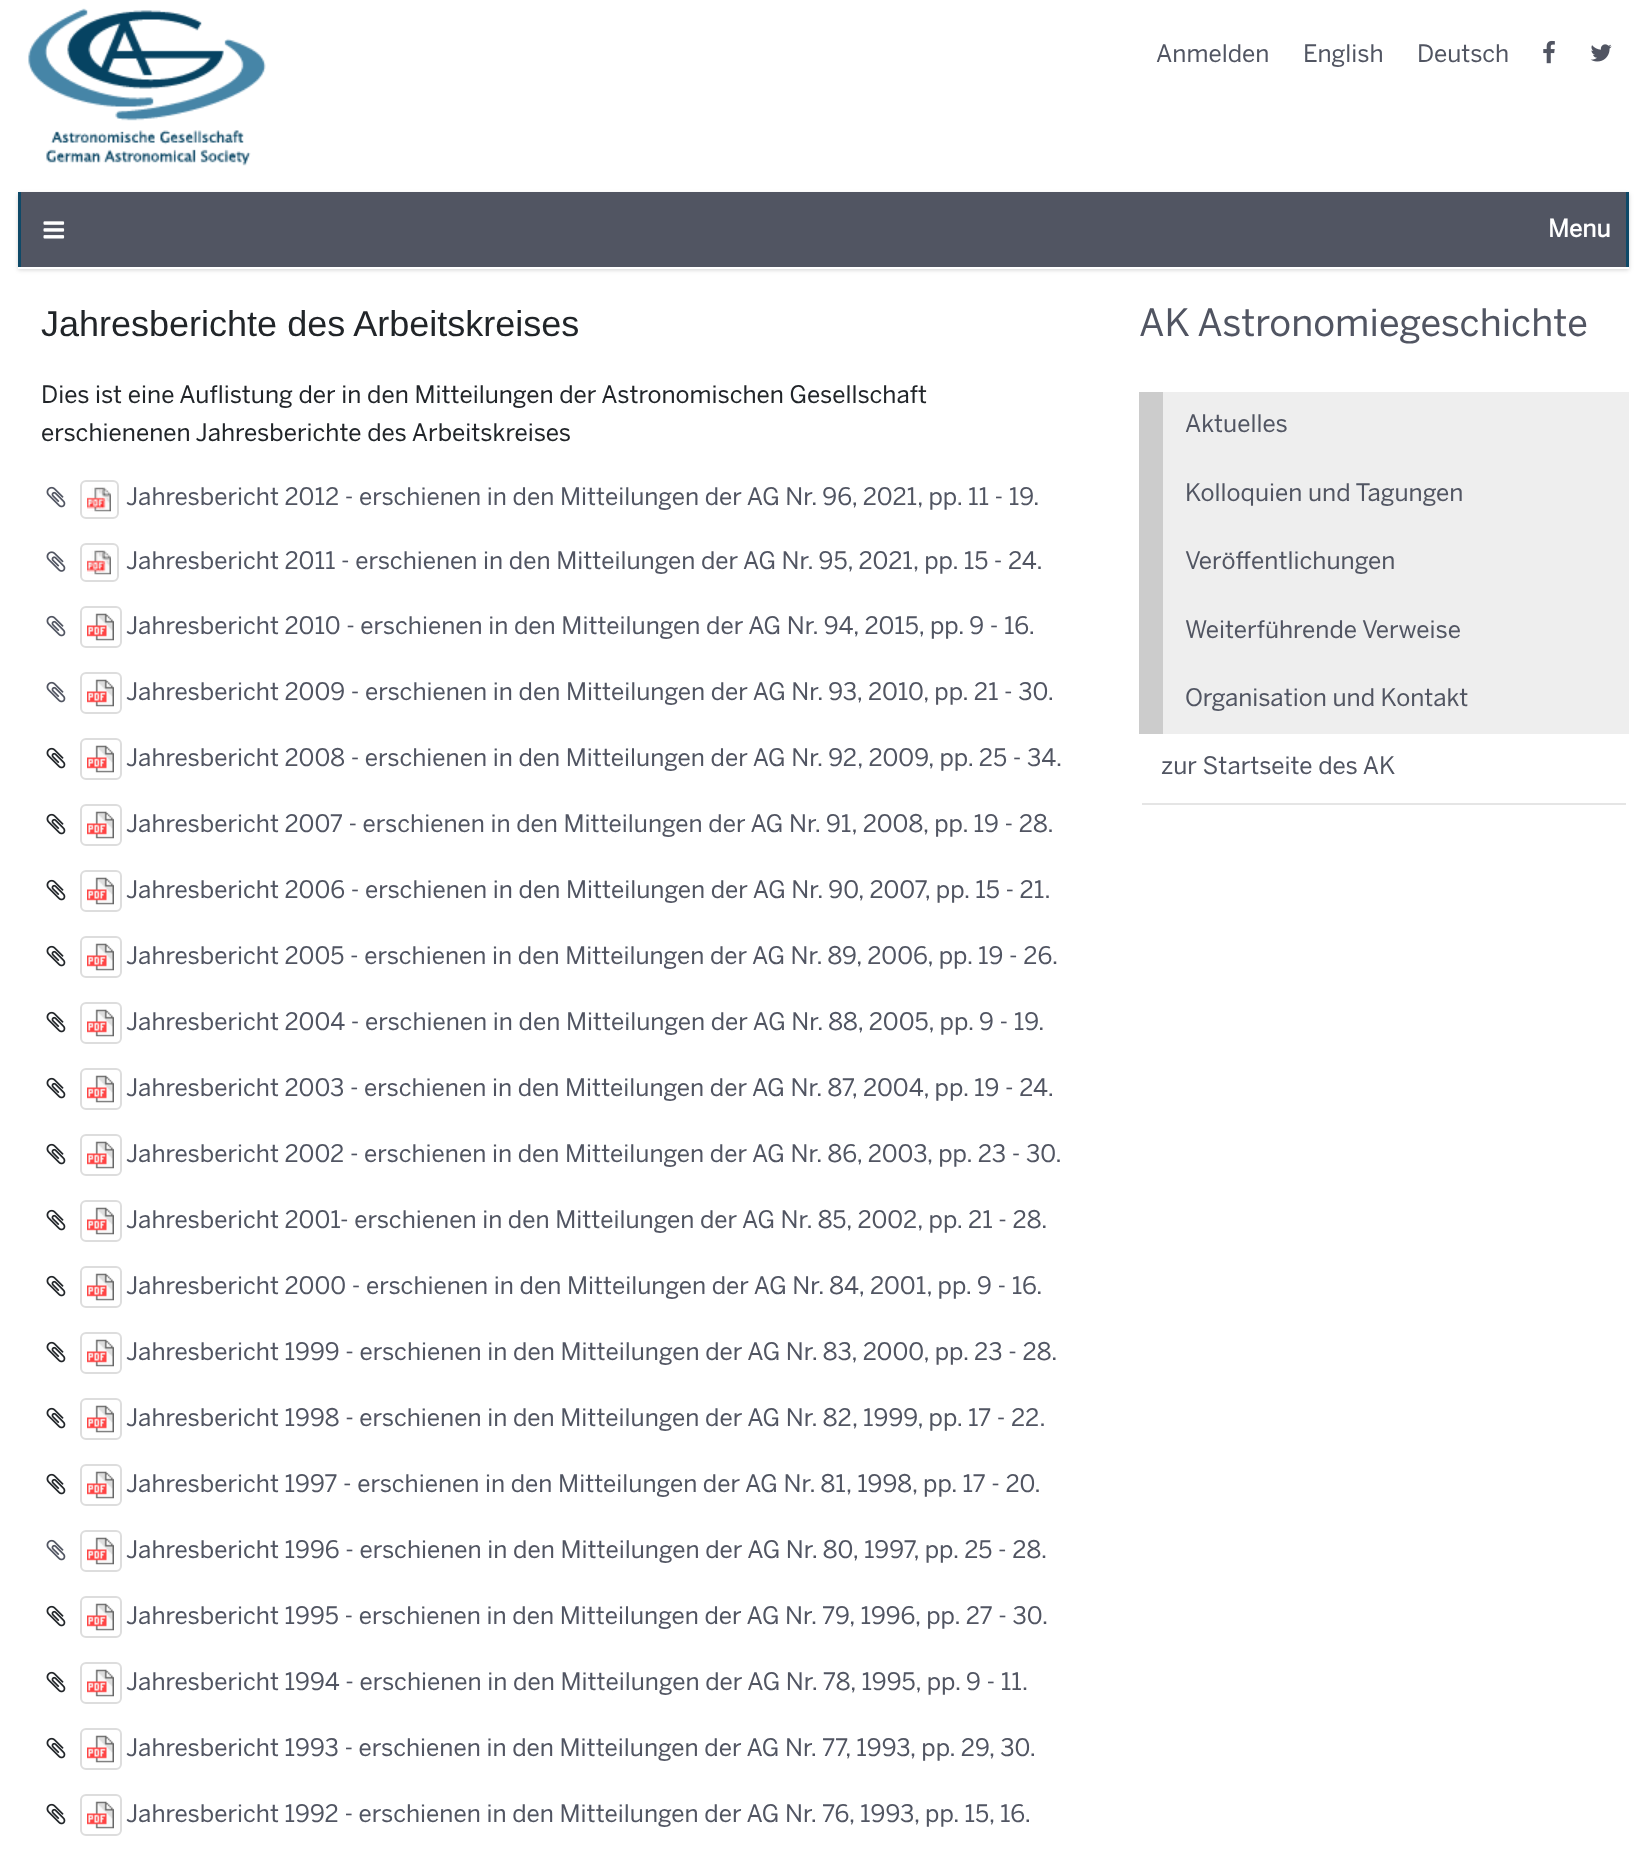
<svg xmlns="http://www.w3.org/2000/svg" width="1647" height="1868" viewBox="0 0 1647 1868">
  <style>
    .t1 { font: 24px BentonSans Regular; fill: #515562; }
    .t2 { font: bold 24px BentonSans Regular; fill: #fff; }
    .t3 { font: 36px Liberation Sans; fill: #212529; }
    .t4 { font: 24px BentonSans Regular; fill: #212529; }
    .t5 { font: 37.5px BentonSans Regular; fill: #515562; }
  </style>
  <rect width="100%" height="100%" fill="#fff"/>
  <image x="28" y="8" width="238" height="158" href="images/1.png"/>
  <text x="1156" y="62" class="t1">Anmelden</text>
  <text x="1303" y="62" class="t1">English</text>
  <text x="1417" y="62" class="t1">Deutsch</text>
  <image x="1543" y="40" width="12" height="24" href="images/2.png"/>
  <image x="1590" y="44" width="22" height="18" href="images/3.png"/>
  <rect x="18" y="194" width="1611" height="76" fill="#0000002b" filter="blur(2px)"/>
  <rect x="18" y="192" width="1611" height="75" fill="#0e4968"/>
  <rect x="18" y="267" width="1611" height="2" fill="#fff"/>
  <rect x="21" y="192" width="1605" height="75" fill="#515562"/>
  <image x="43" y="221" width="22" height="18" href="images/4.png"/>
  <text x="1548" y="237" class="t2">Menu</text>
  <text x="41" y="336" class="t3">Jahresberichte des Arbeitskreises</text>
  <text x="41" y="403" class="t4">Dies ist eine Auflistung der in den Mitteilungen der Astronomischen Gesellschaft</text>
  <text x="41" y="441" class="t4">erschienenen Jahresberichte des Arbeitskreises</text>
  <image x="46" y="486" width="20" height="22" href="images/5.png"/>
  <rect x="81" y="481" width="37" height="37" rx="5" fill="none" stroke="#ddd" stroke-width="2"/>
  <image x="87" y="487" width="24" height="25" href="images/6.png"/>
  <text x="126" y="505" class="t1">Jahresbericht 2012 - erschienen in den Mitteilungen der AG Nr. 96, 2021, pp. 11 - 19.</text>
  <image x="46" y="551" width="20" height="21" href="images/7.png"/>
  <rect x="81" y="544" width="37" height="37" rx="5" fill="none" stroke="#ddd" stroke-width="2"/>
  <image x="87" y="550" width="24" height="25" href="images/6.png"/>
  <text x="126" y="569" class="t1">Jahresbericht 2011 - erschienen in den Mitteilungen der AG Nr. 95, 2021, pp. 15 - 24.</text>
  <image x="46" y="615" width="20" height="22" href="images/5.png"/>
  <rect x="81" y="607" width="40" height="40" rx="5" fill="none" stroke="#ddd" stroke-width="2"/>
  <image x="87" y="613" width="27" height="28" href="images/8.png"/>
  <text x="126" y="634" class="t1">Jahresbericht 2010 - erschienen in den Mitteilungen der AG Nr. 94, 2015, pp. 9 - 16.</text>
  <image x="46" y="681" width="20" height="22" href="images/5.png"/>
  <rect x="81" y="673" width="40" height="40" rx="5" fill="none" stroke="#ddd" stroke-width="2"/>
  <image x="87" y="679" width="27" height="28" href="images/8.png"/>
  <text x="126" y="700" class="t1">Jahresbericht 2009 - erschienen in den Mitteilungen der AG Nr. 93, 2010, pp. 21 - 30.</text>
  <image x="46" y="747" width="20" height="22" href="images/9.png"/>
  <rect x="81" y="739" width="40" height="40" rx="5" fill="none" stroke="#ddd" stroke-width="2"/>
  <image x="87" y="745" width="27" height="28" href="images/8.png"/>
  <text x="126" y="766" class="t1">Jahresbericht 2008 - erschienen in den Mitteilungen der AG Nr. 92, 2009, pp. 25 - 34.</text>
  <image x="46" y="813" width="20" height="22" href="images/9.png"/>
  <rect x="81" y="805" width="40" height="40" rx="5" fill="none" stroke="#ddd" stroke-width="2"/>
  <image x="87" y="811" width="27" height="28" href="images/8.png"/>
  <text x="126" y="832" class="t1">Jahresbericht 2007 - erschienen in den Mitteilungen der AG Nr. 91, 2008, pp. 19 - 28.</text>
  <image x="46" y="879" width="20" height="22" href="images/9.png"/>
  <rect x="81" y="871" width="40" height="40" rx="5" fill="none" stroke="#ddd" stroke-width="2"/>
  <image x="87" y="877" width="27" height="28" href="images/8.png"/>
  <text x="126" y="898" class="t1">Jahresbericht 2006 - erschienen in den Mitteilungen der AG Nr. 90, 2007, pp. 15 - 21.</text>
  <image x="46" y="945" width="20" height="22" href="images/9.png"/>
  <rect x="81" y="937" width="40" height="40" rx="5" fill="none" stroke="#ddd" stroke-width="2"/>
  <image x="87" y="943" width="27" height="28" href="images/8.png"/>
  <text x="126" y="964" class="t1">Jahresbericht 2005 - erschienen in den Mitteilungen der AG Nr. 89, 2006, pp. 19 - 26.</text>
  <image x="46" y="1011" width="20" height="22" href="images/9.png"/>
  <rect x="81" y="1003" width="40" height="40" rx="5" fill="none" stroke="#ddd" stroke-width="2"/>
  <image x="87" y="1009" width="27" height="28" href="images/8.png"/>
  <text x="126" y="1030" class="t1">Jahresbericht 2004 - erschienen in den Mitteilungen der AG Nr. 88, 2005, pp. 9 - 19.</text>
  <image x="46" y="1077" width="20" height="22" href="images/9.png"/>
  <rect x="81" y="1069" width="40" height="40" rx="5" fill="none" stroke="#ddd" stroke-width="2"/>
  <image x="87" y="1075" width="27" height="28" href="images/8.png"/>
  <text x="126" y="1096" class="t1">Jahresbericht 2003 - erschienen in den Mitteilungen der AG Nr. 87, 2004, pp. 19 - 24.</text>
  <image x="46" y="1143" width="20" height="22" href="images/9.png"/>
  <rect x="81" y="1135" width="40" height="40" rx="5" fill="none" stroke="#ddd" stroke-width="2"/>
  <image x="87" y="1141" width="27" height="28" href="images/8.png"/>
  <text x="126" y="1162" class="t1">Jahresbericht 2002 - erschienen in den Mitteilungen der AG Nr. 86, 2003, pp. 23 - 30.</text>
  <image x="46" y="1209" width="20" height="22" href="images/9.png"/>
  <rect x="81" y="1201" width="40" height="40" rx="5" fill="none" stroke="#ddd" stroke-width="2"/>
  <image x="87" y="1207" width="27" height="28" href="images/8.png"/>
  <text x="126" y="1228" class="t1">Jahresbericht 2001- erschienen in den Mitteilungen der AG Nr. 85, 2002, pp. 21 - 28.</text>
  <image x="46" y="1275" width="20" height="22" href="images/9.png"/>
  <rect x="81" y="1267" width="40" height="40" rx="5" fill="none" stroke="#ddd" stroke-width="2"/>
  <image x="87" y="1273" width="27" height="28" href="images/8.png"/>
  <text x="126" y="1294" class="t1">Jahresbericht 2000 - erschienen in den Mitteilungen der AG Nr. 84, 2001, pp. 9 - 16.</text>
  <image x="46" y="1341" width="20" height="22" href="images/9.png"/>
  <rect x="81" y="1333" width="40" height="40" rx="5" fill="none" stroke="#ddd" stroke-width="2"/>
  <image x="87" y="1339" width="27" height="28" href="images/8.png"/>
  <text x="126" y="1360" class="t1">Jahresbericht 1999 - erschienen in den Mitteilungen der AG Nr. 83, 2000, pp. 23 - 28.</text>
  <image x="46" y="1407" width="20" height="22" href="images/9.png"/>
  <rect x="81" y="1399" width="40" height="40" rx="5" fill="none" stroke="#ddd" stroke-width="2"/>
  <image x="87" y="1405" width="27" height="28" href="images/8.png"/>
  <text x="126" y="1426" class="t1">Jahresbericht 1998 - erschienen in den Mitteilungen der AG Nr. 82, 1999, pp. 17 - 22.</text>
  <image x="46" y="1473" width="20" height="22" href="images/9.png"/>
  <rect x="81" y="1465" width="40" height="40" rx="5" fill="none" stroke="#ddd" stroke-width="2"/>
  <image x="87" y="1471" width="27" height="28" href="images/8.png"/>
  <text x="126" y="1492" class="t1">Jahresbericht 1997 - erschienen in den Mitteilungen der AG Nr. 81, 1998, pp. 17 - 20.</text>
  <image x="46" y="1539" width="20" height="22" href="images/5.png"/>
  <rect x="81" y="1531" width="40" height="40" rx="5" fill="none" stroke="#ddd" stroke-width="2"/>
  <image x="87" y="1537" width="27" height="28" href="images/8.png"/>
  <text x="126" y="1558" class="t1">Jahresbericht 1996 - erschienen in den Mitteilungen der AG Nr. 80, 1997, pp. 25 - 28.</text>
  <image x="46" y="1605" width="20" height="22" href="images/9.png"/>
  <rect x="81" y="1597" width="40" height="40" rx="5" fill="none" stroke="#ddd" stroke-width="2"/>
  <image x="87" y="1603" width="27" height="28" href="images/8.png"/>
  <text x="126" y="1624" class="t1">Jahresbericht 1995 - erschienen in den Mitteilungen der AG Nr. 79, 1996, pp. 27 - 30.</text>
  <image x="46" y="1671" width="20" height="22" href="images/9.png"/>
  <rect x="81" y="1663" width="40" height="40" rx="5" fill="none" stroke="#ddd" stroke-width="2"/>
  <image x="87" y="1669" width="27" height="28" href="images/8.png"/>
  <text x="126" y="1690" class="t1">Jahresbericht 1994 - erschienen in den Mitteilungen der AG Nr. 78, 1995, pp. 9 - 11.</text>
  <image x="46" y="1737" width="20" height="22" href="images/9.png"/>
  <rect x="81" y="1729" width="40" height="40" rx="5" fill="none" stroke="#ddd" stroke-width="2"/>
  <image x="87" y="1735" width="27" height="28" href="images/8.png"/>
  <text x="126" y="1756" class="t1">Jahresbericht 1993 - erschienen in den Mitteilungen der AG Nr. 77, 1993, pp. 29, 30.</text>
  <image x="46" y="1803" width="20" height="22" href="images/9.png"/>
  <rect x="81" y="1795" width="40" height="40" rx="5" fill="none" stroke="#ddd" stroke-width="2"/>
  <image x="87" y="1801" width="27" height="28" href="images/8.png"/>
  <text x="126" y="1822" class="t1">Jahresbericht 1992 - erschienen in den Mitteilungen der AG Nr. 76, 1993, pp. 15, 16.</text>
  <text x="1139" y="336" class="t5">AK Astronomiegeschichte</text>
  <rect x="1142" y="803" width="484" height="2" fill="#e5e5e5"/>
  <rect x="1163" y="392" width="466" height="342" fill="#eee"/>
  <rect x="1139" y="392" width="24" height="342" fill="#ccc"/>
  <text x="1185" y="432" class="t1">Aktuelles</text>
  <text x="1185" y="501" class="t1">Kolloquien und Tagungen</text>
  <text x="1185" y="569" class="t1">Veröffentlichungen</text>
  <text x="1185" y="638" class="t1">Weiterführende Verweise</text>
  <text x="1185" y="706" class="t1">Organisation und Kontakt</text>
  <text x="1161" y="774" class="t1">zur Startseite des AK</text>
</svg>
